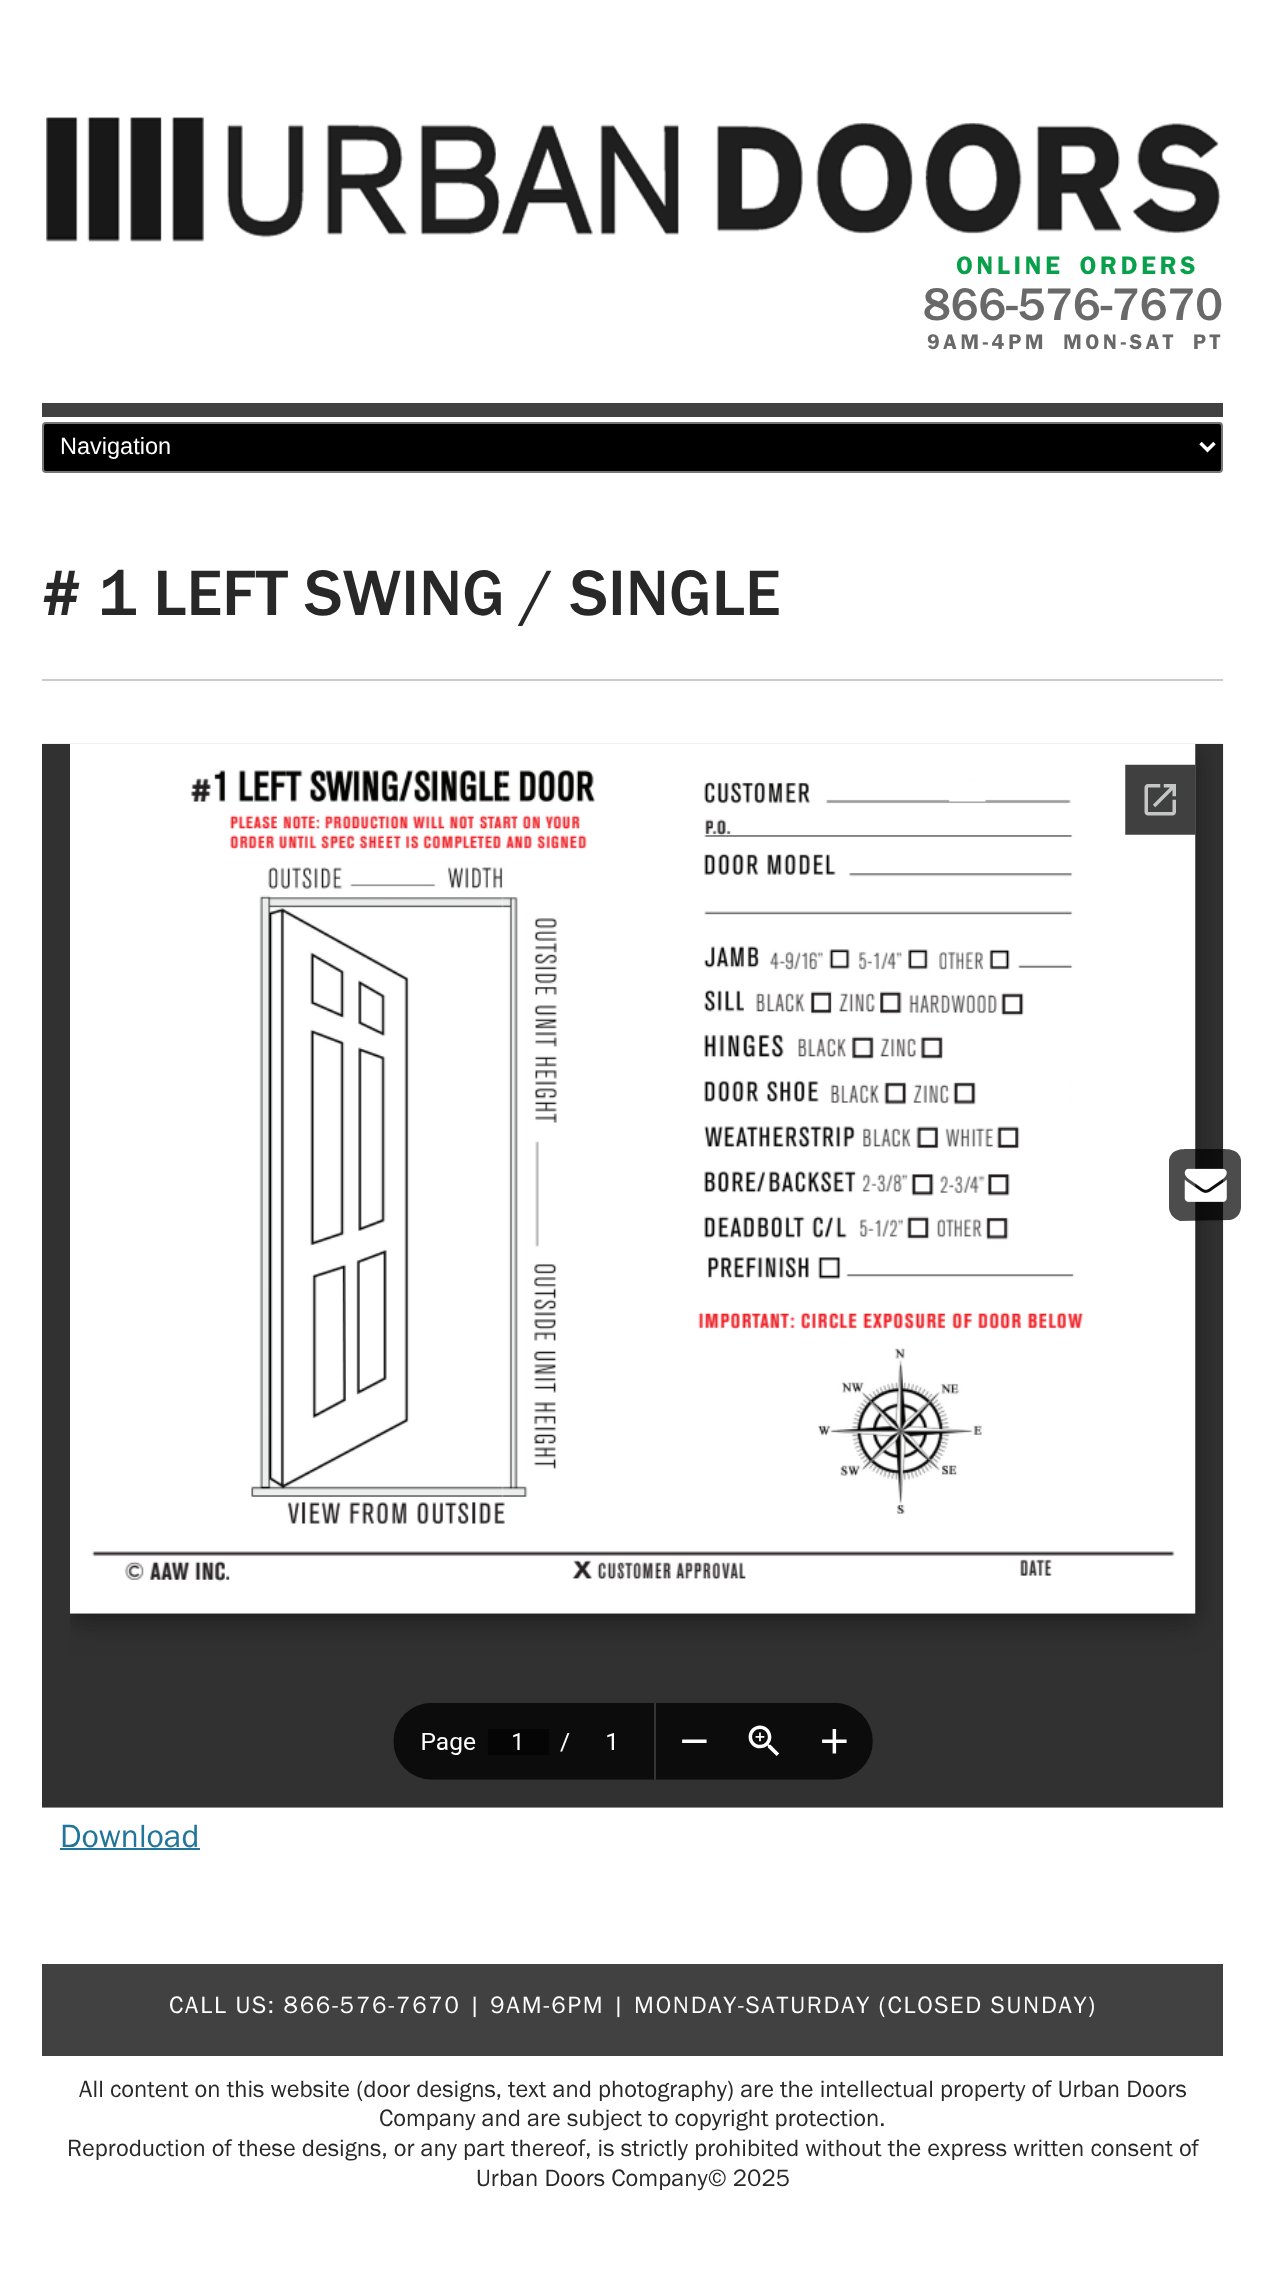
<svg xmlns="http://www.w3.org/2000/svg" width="1265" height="2284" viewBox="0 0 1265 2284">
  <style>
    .t1 { font: 26.25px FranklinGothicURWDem; letter-spacing: 3.5px; fill: #08a04b; }
    .t2 { font: 47.25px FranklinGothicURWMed; fill: #696969; }
    .t3 { font: 21.9px FranklinGothicURWDem; letter-spacing: 3.5px; fill: #696969; }
    .t4 { font: 23.5px Liberation Sans; fill: #fff; }
    .t5 { font: 66.5px FranklinGothicURWMed; fill: #272827; }
    .t6 { font: 33.25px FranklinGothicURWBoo; fill: #21759b; }
    .t7 { font: 24.5px FranklinGothicURWBoo; letter-spacing: 1.75px; fill: #fff; }
    .t8 { font: 24.5px FranklinGothicURWBoo; fill: #272827; }
  </style>
  <rect width="100%" height="100%" fill="#fff"/>
  <image x="46" y="117" width="1175" height="125" href="images/1.png"/>
  <text x="956" y="274" word-spacing="6" class="t1">ONLINE ORDERS</text>
  <text x="923" y="320" class="t2">866-576-7670</text>
  <text x="927" y="349" word-spacing="7" class="t3">9AM-4PM MON-SAT PT</text>
  <rect x="42" y="403" width="1181" height="14" fill="#414142"/>
  <rect x="43" y="423" width="1179" height="49" rx="3" fill="#000" stroke="#767676" stroke-width="2"/>
  <path d="M1200.5 443L1207.5 450L1214.5 443" fill="none" stroke="#fff" stroke-width="3.5"/>
  <text x="60" y="454" class="t4">Navigation</text>
  <rect x="42" y="679" width="1181" height="2" fill="#cbcbcb"/>
  <text x="42" y="615" class="t5"># 1 LEFT SWING / SINGLE</text>
  <image x="42" y="743" width="1182" height="1065" href="images/2.png"/>
  <text x="60" y="1847" class="t6">Download</text>
  <rect x="60" y="1848" width="140" height="2" fill="#21759b"/>
  <rect x="42" y="1964" width="1181" height="92" fill="#414142"/>
  <text x="169" y="2013" class="t7">CALL US: 866-576-7670 | 9AM-6PM | MONDAY-SATURDAY (CLOSED SUNDAY)</text>
  <text x="79" y="2097" class="t8">All content on this website (door designs, text and photography) are the intellectual property of Urban Doors</text>
  <text x="379" y="2126" class="t8">Company and are subject to copyright protection.</text>
  <text x="67" y="2156" class="t8">Reproduction of these designs, or any part thereof, is strictly prohibited without the express written consent of</text>
  <text x="476" y="2186" class="t8">Urban Doors Company© 2025</text>
  <path d="M1169 1207V1160C1171 1149 1181 1149 1190 1149H1220C1229 1149 1239 1149 1241 1160V1207C1241 1214 1236 1219 1230 1220L1180 1221C1174 1219 1169 1214 1169 1207Z" fill="#000000b3"/>
  <image x="1184" y="1168" width="43" height="34" href="images/3.png"/>
</svg>
